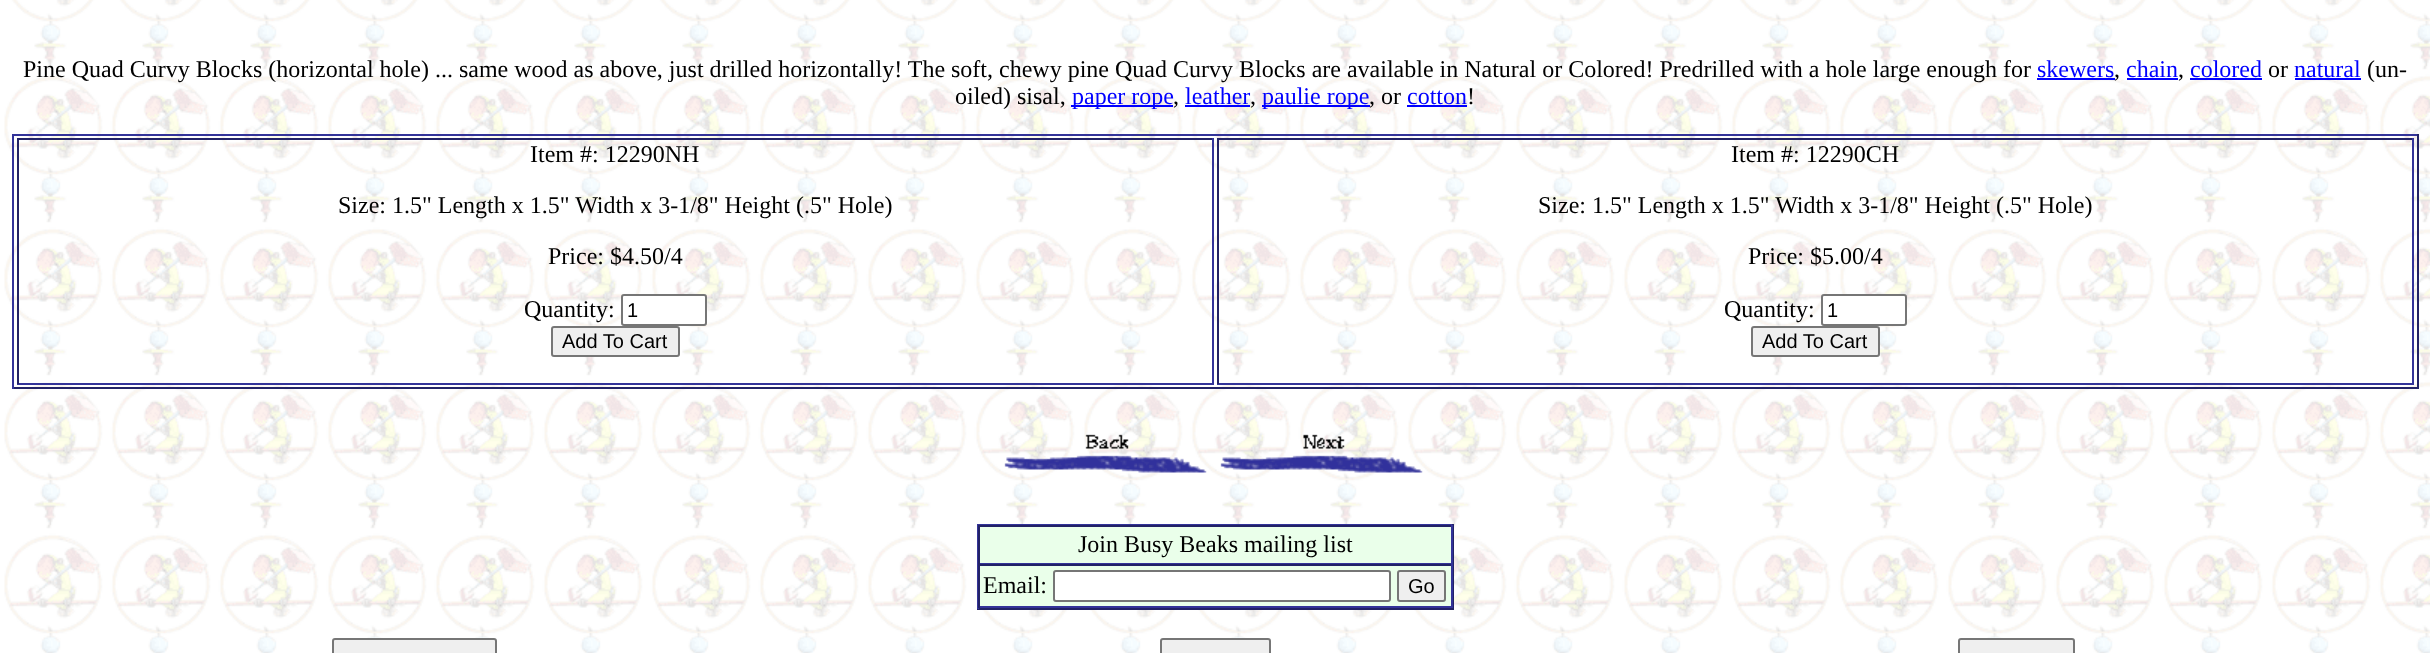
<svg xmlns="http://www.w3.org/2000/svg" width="2430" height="653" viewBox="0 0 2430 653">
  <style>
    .t1 { font: 24px Liberation Serif; fill: #000; }
    .t2 { font: 24px Liberation Serif; fill: #00f; }
    .t3 { font: 20px Liberation Sans; fill: #000; }
  </style>
  <rect width="100%" height="100%" fill="#fff"/>
  <image x="4" y="0" width="2426" height="653" href="images/1.png"/>
  <text x="23" y="77" class="t1">Pine Quad Curvy Blocks (horizontal hole) ... same wood as above, just drilled horizontally! The soft, chewy pine Quad Curvy Blocks are available in Natural or Colored! Predrilled with a hole large enough for</text>
  <text x="2037" y="77" class="t2">skewers</text>
  <rect x="2037" y="78" width="78" height="2" fill="#00f"/>
  <text x="2114" y="77" class="t1">,</text>
  <text x="2126" y="77" class="t2">chain</text>
  <rect x="2127" y="78" width="51" height="2" fill="#00f"/>
  <text x="2178" y="77" class="t1">,</text>
  <text x="2190" y="77" class="t2">colored</text>
  <rect x="2190" y="78" width="72" height="2" fill="#00f"/>
  <text x="2268" y="77" class="t1">or</text>
  <text x="2294" y="77" class="t2">natural</text>
  <rect x="2295" y="78" width="66" height="2" fill="#00f"/>
  <text x="2367" y="77" class="t1">(un-</text>
  <text x="955" y="104" class="t1">oiled) sisal,</text>
  <rect x="1071" y="105" width="102" height="2" fill="#00f"/>
  <text x="1072" y="104" class="t2">paper rope</text>
  <text x="1173" y="104" class="t1">,</text>
  <text x="1185" y="104" class="t2">leather</text>
  <rect x="1185" y="105" width="65" height="2" fill="#00f"/>
  <text x="1250" y="104" class="t1">,</text>
  <rect x="1262" y="105" width="108" height="2" fill="#00f"/>
  <text x="1262" y="104" class="t2">paulie rope</text>
  <text x="1369" y="104" class="t1">, or</text>
  <text x="1407" y="104" class="t2">cotton</text>
  <rect x="1407" y="105" width="60" height="2" fill="#00f"/>
  <text x="1467" y="104" class="t1">!</text>
  <rect x="12" y="134" width="2406" height="2" fill="#339"/>
  <rect x="2417" y="134" width="2" height="255" fill="#226"/>
  <rect x="12" y="387" width="2406" height="2" fill="#226"/>
  <rect x="12" y="134" width="2" height="255" fill="#339"/>
  <rect x="17" y="138" width="1197" height="2" fill="#226"/>
  <rect x="1212" y="138" width="2" height="246" fill="#339"/>
  <rect x="17" y="383" width="1197" height="2" fill="#339"/>
  <rect x="17" y="138" width="2" height="246" fill="#226"/>
  <text x="530" y="162" class="t1">Item #: 12290NH</text>
  <text x="338" y="213" class="t1">Size: 1.5" Length x 1.5" Width x 3-1/8" Height (.5" Hole)</text>
  <text x="548" y="264" class="t1">Price: $4.50/4</text>
  <text x="524" y="317" class="t1">Quantity:</text>
  <rect x="622" y="295" width="84" height="30" rx="2" fill="#fff" stroke="#767676" stroke-width="2"/>
  <text x="627" y="317" class="t3">1</text>
  <rect x="552" y="327" width="127" height="29" rx="2" fill="#efefef" stroke="#767676" stroke-width="2"/>
  <text x="562" y="348" class="t3">Add To Cart</text>
  <rect x="1217" y="138" width="1197" height="2" fill="#226"/>
  <rect x="2412" y="138" width="2" height="246" fill="#339"/>
  <rect x="1217" y="383" width="1197" height="2" fill="#339"/>
  <rect x="1217" y="138" width="2" height="246" fill="#226"/>
  <text x="1731" y="162" class="t1">Item #: 12290CH</text>
  <text x="1538" y="213" class="t1">Size: 1.5" Length x 1.5" Width x 3-1/8" Height (.5" Hole)</text>
  <text x="1748" y="264" class="t1">Price: $5.00/4</text>
  <text x="1724" y="317" class="t1">Quantity:</text>
  <rect x="1822" y="295" width="84" height="30" rx="2" fill="#fff" stroke="#767676" stroke-width="2"/>
  <text x="1827" y="317" class="t3">1</text>
  <rect x="1752" y="327" width="127" height="29" rx="2" fill="#efefef" stroke="#767676" stroke-width="2"/>
  <text x="1762" y="348" class="t3">Add To Cart</text>
  <image x="1004" y="434" width="203" height="39" href="images/2.png"/>
  <image x="1220" y="434" width="203" height="39" href="images/3.png"/>
  <rect x="980" y="527" width="471" height="79" fill="#eaffea"/>
  <rect x="977" y="524" width="477" height="1" fill="#339"/>
  <rect x="1452" y="524" width="2" height="85" fill="#226"/>
  <rect x="977" y="608" width="477" height="2" fill="#226"/>
  <rect x="977" y="524" width="2" height="85" fill="#339"/>
  <rect x="978" y="525" width="474" height="2" fill="#226"/>
  <rect x="1451" y="525" width="2" height="39" fill="#339"/>
  <rect x="978" y="563" width="474" height="1" fill="#339"/>
  <rect x="978" y="525" width="2" height="39" fill="#226"/>
  <text x="1078" y="552" class="t1">Join Busy Beaks mailing list</text>
  <rect x="978" y="564" width="474" height="2" fill="#226"/>
  <rect x="1451" y="564" width="2" height="44" fill="#339"/>
  <rect x="978" y="606" width="474" height="2" fill="#339"/>
  <rect x="978" y="564" width="2" height="44" fill="#226"/>
  <text x="983" y="593" class="t1">Email:</text>
  <rect x="1054" y="571" width="336" height="30" rx="2" fill="#fff" stroke="#767676" stroke-width="2"/>
  <rect x="1398" y="571" width="47" height="30" rx="2" fill="#efefef" stroke="#767676" stroke-width="2"/>
  <text x="1408" y="593" class="t3">Go</text>
  <rect x="333" y="639" width="163" height="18" rx="2" fill="#efefef" stroke="#767676" stroke-width="2"/>
  <rect x="1161" y="639" width="109" height="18" rx="2" fill="#efefef" stroke="#767676" stroke-width="2"/>
  <rect x="1959" y="639" width="115" height="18" rx="2" fill="#efefef" stroke="#767676" stroke-width="2"/>
</svg>
